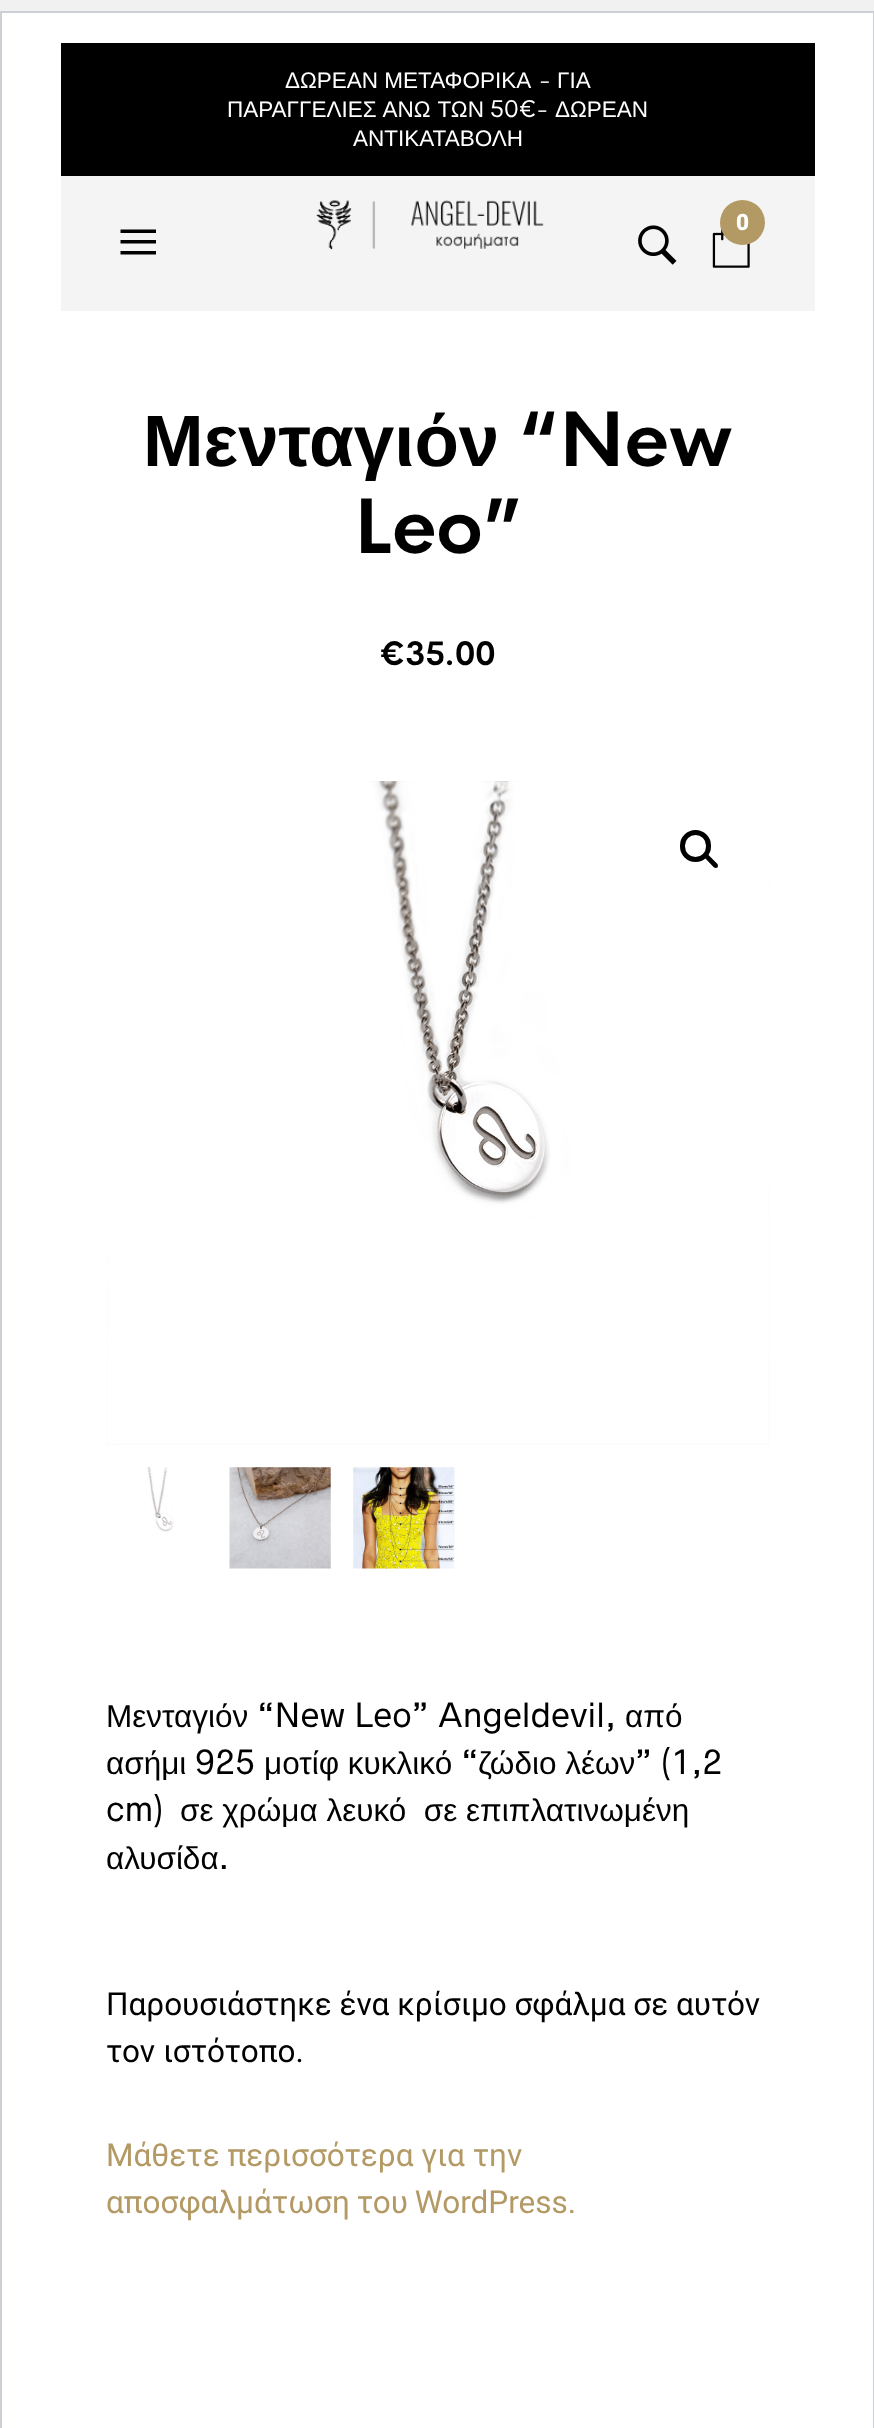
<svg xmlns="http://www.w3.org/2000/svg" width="874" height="2428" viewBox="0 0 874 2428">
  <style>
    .t1 { font: 22.5px Liberation Sans; fill: #fff; }
    .t2 { font: 22.5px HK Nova; fill: #fff; }
    .t3 { font: 900 22.5px Roboto; fill: #fff; }
    .t4 { font: bold 72.75px Liberation Sans; fill: #000; }
    .t5 { font: bold 72.75px HK Nova; fill: #000; }
    .t6 { font: bold 31.5px HK Nova; fill: #000; }
    .t7 { font: 31.5px Liberation Sans; fill: #000; }
    .t8 { font: 31.5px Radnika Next; fill: #000; }
    .t9 { font: 31.5px Roboto; fill: #000; }
    .t10 { font: 31.5px Roboto; fill: #b39964; }
  </style>
  <rect width="100%" height="100%" fill="#f1f1f1"/>
  <rect x="1" y="12" width="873" height="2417" fill="#fff" stroke="#ccd0d4" stroke-width="2"/>
  <rect x="61" y="176" width="754" height="135" fill="#f4f4f4"/>
  <rect x="61" y="43" width="754" height="133" fill="#000"/>
  <text x="285" y="88" class="t1">ΔΩΡΕΑΝ ΜΕΤΑΦΟΡΙΚΑ</text>
  <text x="539" y="88" class="t2">-</text>
  <text x="557" y="88" class="t1">ΓΙΑ</text>
  <text x="227" y="117" word-spacing="1" class="t1">ΠΑΡΑΓΓΕΛΙΕΣ ΑΝΩ ΤΩΝ</text>
  <text x="490" y="117" class="t2">50€-</text>
  <text x="555" y="117" class="t1">ΔΩΡΕΑΝ</text>
  <text x="353" y="146" class="t1">ΑΝΤΙΚΑΤΑΒΟΛΗ</text>
  <image x="316" y="200" width="228" height="50" href="images/1.png"/>
  <image x="712" y="229" width="38" height="39" href="images/2.png"/>
  <circle cx="742.5" cy="222.5" r="22.5" fill="#b39964"/>
  <text x="736" y="230" class="t3">0</text>
  <image x="638" y="225" width="39" height="40" href="images/3.png"/>
  <path d="M120.5 240H156V243.5H120.5ZM120.5 229.5H156V233H120.5ZM120.5 251H156V254.5H120.5Z" fill="#000"/>
  <text x="143" y="466" class="t4">Μενταγιόν</text>
  <text x="520" y="466" class="t5">“New</text>
  <text x="354" y="553" class="t5">Leo”</text>
  <text x="379" y="665" class="t6">€35.00</text>
  <image x="106" y="781" width="664" height="664" href="images/4.png"/>
  <rect x="682.5" y="832.5" width="26" height="27" rx="13" fill="none" stroke="#000" stroke-width="5"/>
  <path d="M704.5 854.5C705.5 853.5 707 853.5 708 854.5L717.5 864C718 865 718 866.5 717.5 867.5C716.5 868 715 868 714 867.5L704.5 857.5C704 857 704 855.5 704.5 854.5Z" fill="#000"/>
  <image x="147" y="1467" width="27" height="65" href="images/5.png"/>
  <image x="229" y="1467" width="102" height="102" href="images/6.png"/>
  <image x="353" y="1467" width="102" height="102" href="images/7.png"/>
  <text x="106" y="1727" class="t7">Μενταγιόν</text>
  <text x="257" y="1727" class="t8">“New Leo” Angeldevil,</text>
  <text x="625" y="1727" class="t7">από</text>
  <text x="106" y="1774" class="t7">ασήμι</text>
  <text x="195" y="1774" class="t8">925</text>
  <text x="264" y="1774" class="t7">μοτίφ κυκλικό</text>
  <text x="461" y="1774" class="t8">“</text>
  <text x="478" y="1774" class="t7">ζώδιο λέων</text>
  <text x="635" y="1774" class="t8">” (1,2</text>
  <text x="106" y="1821" class="t8">cm)</text>
  <text x="180" y="1821" class="t7" xml:space="preserve">σε χρώμα λευκό  σε επιπλατινωμένη</text>
  <text x="106" y="1869" class="t7">αλυσίδα</text>
  <text x="218" y="1869" class="t8">.</text>
  <text x="106" y="2015" class="t9">Παρουσιάστηκε ένα κρίσιμο σφάλμα σε αυτόν</text>
  <text x="106" y="2062" class="t9">τον ιστότοπο.</text>
  <text x="106" y="2166" class="t10">Μάθετε περισσότερα για την</text>
  <text x="106" y="2213" word-spacing="-1" class="t10">αποσφαλμάτωση του WordPress.</text>
</svg>
